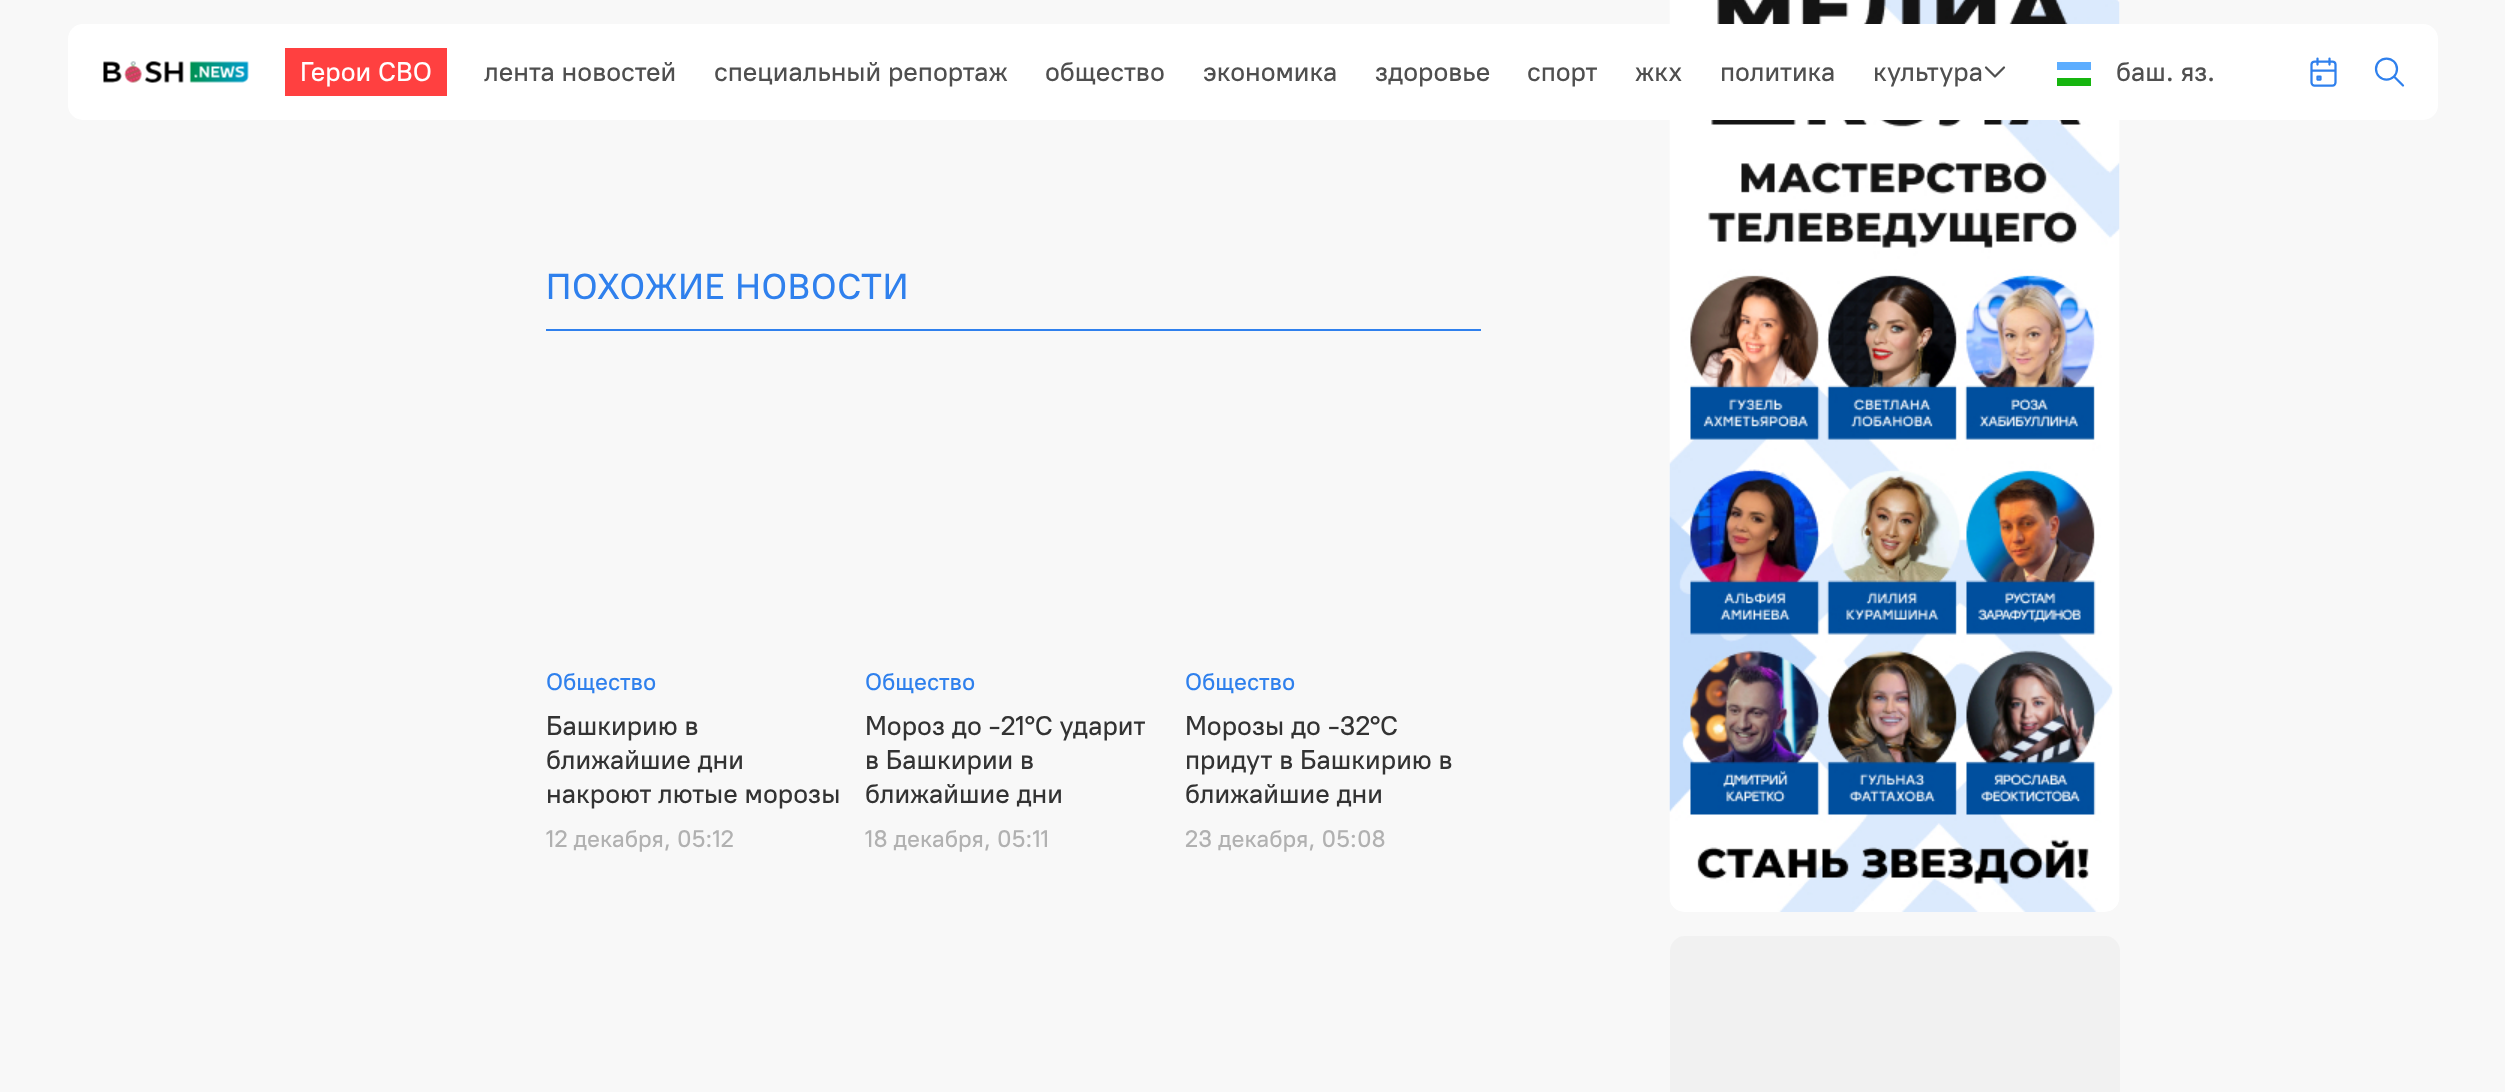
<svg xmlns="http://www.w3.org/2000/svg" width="2505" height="1092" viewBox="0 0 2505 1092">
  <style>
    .t1 { font: 500 27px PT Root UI; fill: #fff; }
    .t2 { font: 500 27px PT Root UI; fill: #4f4f4f; }
    .t3 { font: 500 36px PT Root UI; letter-spacing: 0.75px; fill: #2f80ed; }
    .t4 { font: 500 24px PT Root UI; fill: #2f80ed; }
    .t5 { font: 500 27px PT Root UI; fill: #333; }
    .t6 { font: 500 24px PT Root UI; fill: #b1b1b1; }
  </style>
  <rect width="100%" height="100%" fill="#f8f8f8"/>
  <image x="1669" y="0" width="451" height="912" href="images/5.png"/>
  <rect x="68" y="24" width="2370" height="96" rx="15" fill="#fff"/>
  <image x="103" y="61" width="146" height="22" href="images/1.png"/>
  <rect x="285" y="48" width="162" height="48" fill="#ff4040"/>
  <text x="300" y="81" class="t1">Герои СВО</text>
  <text x="484" y="81" class="t2">лента новостей</text>
  <text x="714" y="81" class="t2">специальный репортаж</text>
  <text x="1045" y="81" class="t2">общество</text>
  <text x="1203" y="81" class="t2">экономика</text>
  <text x="1375" y="81" class="t2">здоровье</text>
  <text x="1527" y="81" class="t2">спорт</text>
  <text x="1635" y="81" class="t2">жкх</text>
  <text x="1720" y="81" class="t2">политика</text>
  <text x="1873" y="81" class="t2">культура</text>
  <image x="1984" y="66" width="22" height="12" href="images/2.png"/>
  <rect x="2057" y="62" width="34" height="8" fill="#5cadff"/>
  <rect x="2057" y="78" width="34" height="8" fill="#16b50f"/>
  <text x="2116" y="81" class="t2">баш. яз.</text>
  <image x="2310" y="57" width="27" height="30" href="images/3.png"/>
  <image x="2374" y="57" width="31" height="30" href="images/4.png"/>
  <rect x="546" y="329" width="935" height="2" fill="#2f80ed"/>
  <text x="546" y="299" class="t3">ПОХОЖИЕ НОВОСТИ</text>
  <text x="546" y="690" class="t4">Общество</text>
  <text x="546" y="735" class="t5">Башкирию в</text>
  <text x="546" y="769" class="t5">ближайшие дни</text>
  <text x="546" y="803" class="t5">накроют лютые морозы</text>
  <text x="546" y="847" class="t6">12 декабря, 05:12</text>
  <text x="865" y="690" class="t4">Общество</text>
  <text x="865" y="735" class="t5">Мороз до -21°C ударит</text>
  <text x="865" y="769" class="t5">в Башкирии в</text>
  <text x="865" y="803" class="t5">ближайшие дни</text>
  <text x="865" y="847" class="t6">18 декабря, 05:11</text>
  <text x="1185" y="690" class="t4">Общество</text>
  <text x="1185" y="735" class="t5">Морозы до -32°C</text>
  <text x="1185" y="769" class="t5">придут в Башкирию в</text>
  <text x="1185" y="803" class="t5">ближайшие дни</text>
  <text x="1185" y="847" class="t6">23 декабря, 05:08</text>
  <rect x="1670" y="936" width="450" height="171" rx="15" fill="#f1f1f1"/>
</svg>
